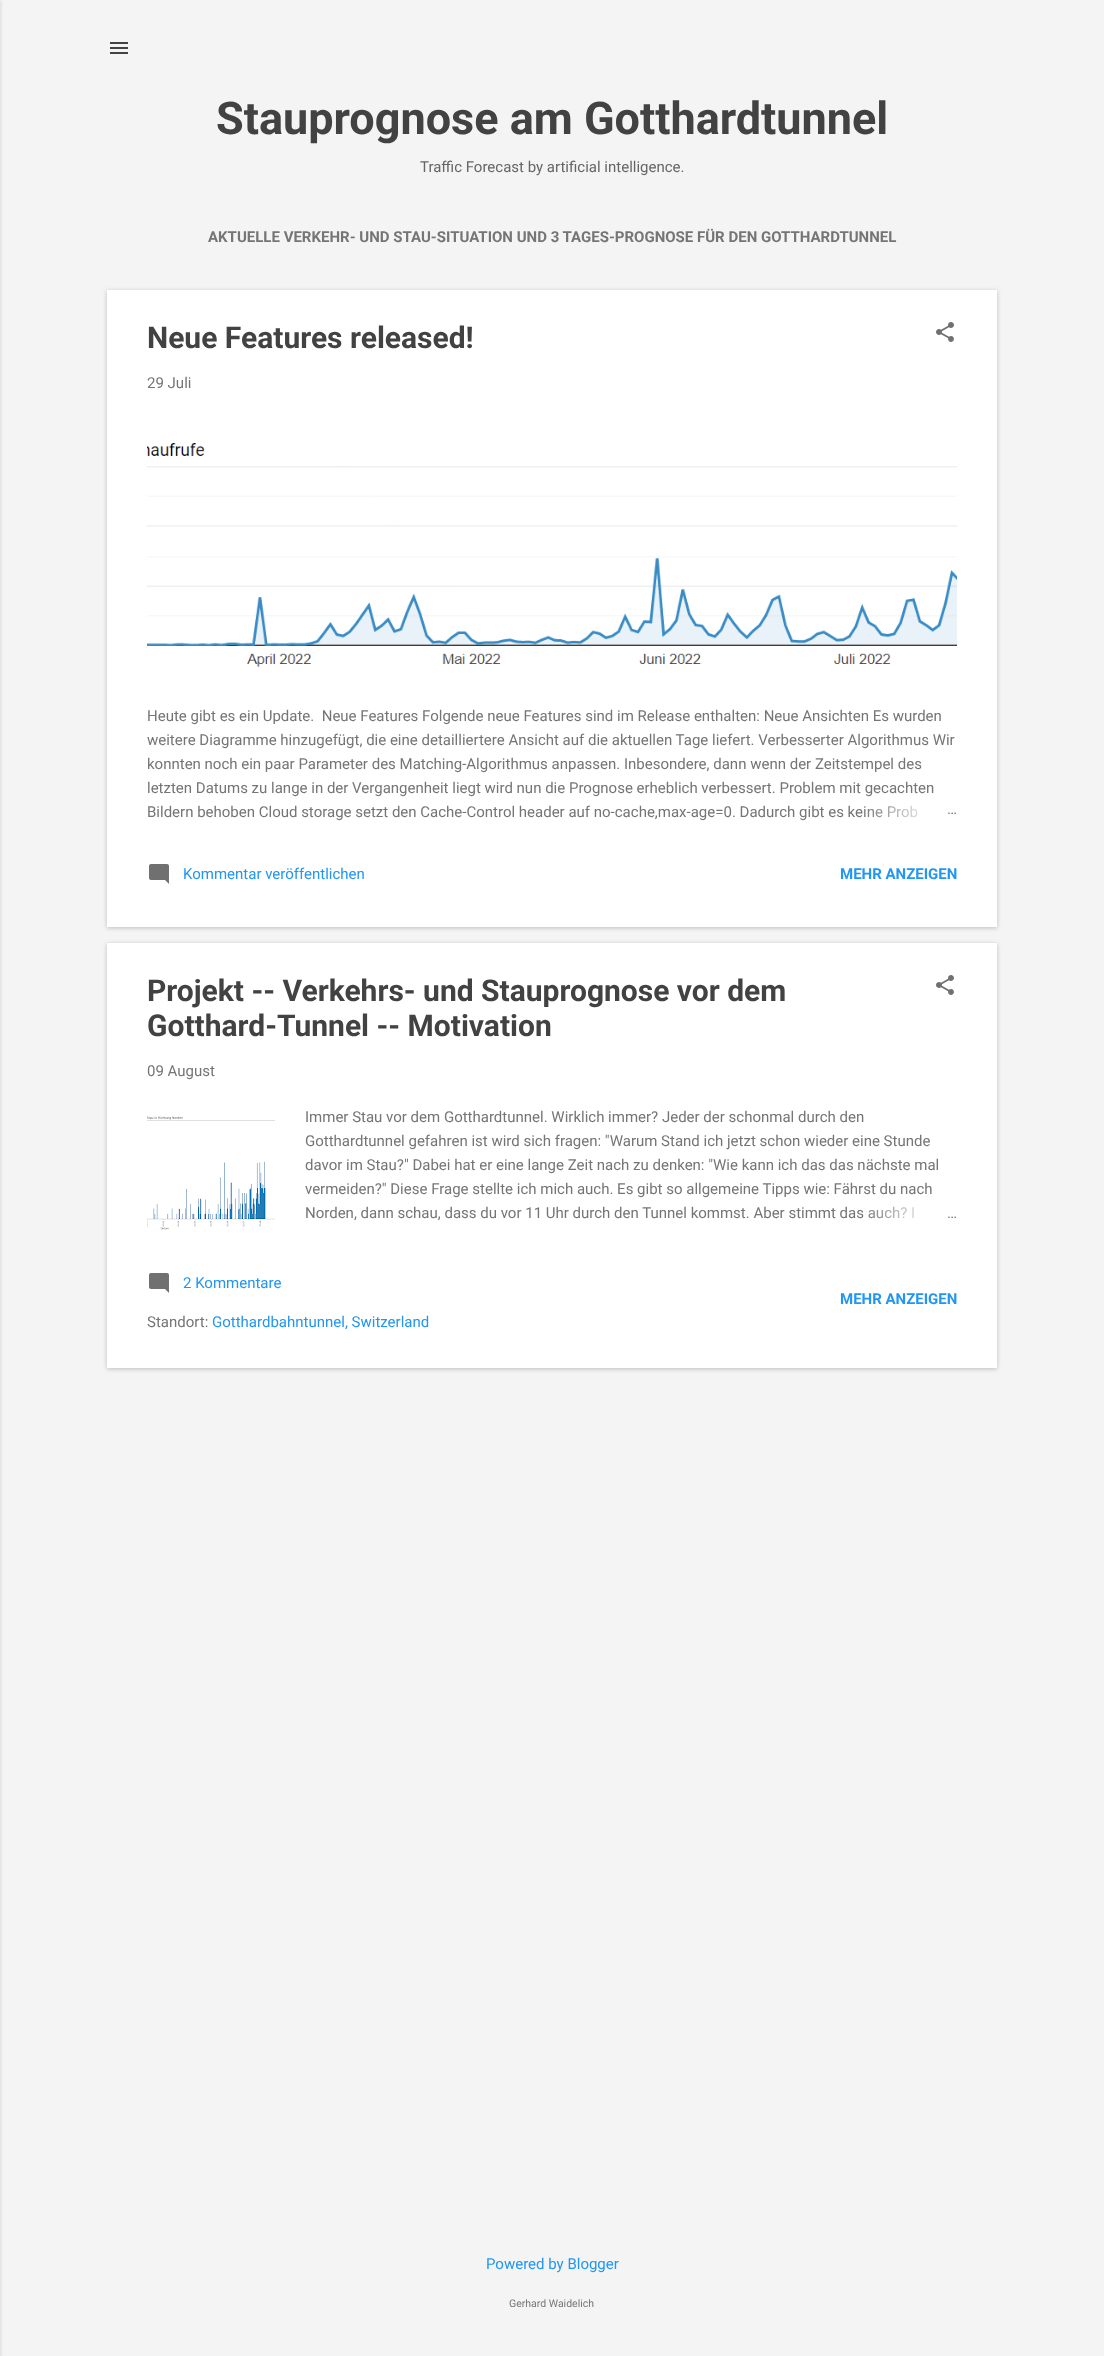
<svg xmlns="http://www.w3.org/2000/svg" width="1104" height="2356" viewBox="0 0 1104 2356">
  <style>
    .t1 { font: bold 45px Roboto; fill: #424242; }
    .t2 { font: 15px Roboto; fill: #666; }
    .t3 { font: bold 15px Roboto; fill: #757575; }
    .t4 { font: bold 30px Roboto; fill: #424242; }
    .t5 { font: 15px Roboto; fill: #757575; }
    .t6 { font: 15px Roboto; fill: #2196f3; }
    .t7 { font: bold 15px Roboto; fill: #2196f3; }
    .t8 { font: 10.5px Roboto; fill: #757575; }
  </style>
  <defs>
    <linearGradient id="g1" gradientUnits="userSpaceOnUse" x1="957" y1="812" x2="861" y2="812"><stop offset="0" stop-color="#fff"/><stop offset="0.2" stop-color="#fff"/><stop offset="1" stop-color="#fff" stop-opacity="0"/></linearGradient>
    <linearGradient id="g2" gradientUnits="userSpaceOnUse" x1="957" y1="1213" x2="861" y2="1213"><stop offset="0" stop-color="#fff"/><stop offset="0.2" stop-color="#fff"/><stop offset="1" stop-color="#fff" stop-opacity="0"/></linearGradient>
  </defs>
  <rect width="100%" height="100%" fill="#f4f4f4"/>
  <rect x="-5" y="1" width="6" height="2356" fill="#0000001a" filter="blur(1.5px)"/>
  <image x="110" y="42" width="18" height="12" href="images/1.png"/>
  <text x="216" y="134" class="t1">Stauprognose am Gotthardtunnel</text>
  <text x="420" y="172" class="t2">Traffic Forecast by artificial intelligence.</text>
  <text x="208" y="242" class="t3">AKTUELLE VERKEHR- UND STAU-SITUATION UND 3 TAGES-PROGNOSE FÜR DEN GOTTHARDTUNNEL</text>
  <rect x="107" y="291" width="890" height="637" fill="#3c40434d" filter="blur(2px)"/>
  <rect x="107" y="290" width="890" height="637" fill="#fff"/>
  <text x="147" y="348" class="t4">Neue Features released!</text>
  <image x="936" y="322" width="18" height="20" href="images/2.png"/>
  <text x="147" y="388" class="t5">29 Juli</text>
  <image x="147" y="443" width="810" height="224" href="images/3.png"/>
  <text x="147" y="721" class="t5" xml:space="preserve">Heute gibt es ein Update.  Neue Features Folgende neue Features sind im Release enthalten: Neue Ansichten Es wurden</text>
  <text x="147" y="745" class="t5">weitere Diagramme hinzugefügt, die eine detailliertere Ansicht auf die aktuellen Tage liefert. Verbesserter Algorithmus Wir</text>
  <text x="147" y="769" class="t5">konnten noch ein paar Parameter des Matching-Algorithmus anpassen. Inbesondere, dann wenn der Zeitstempel des</text>
  <text x="147" y="793" class="t5">letzten Datums zu lange in der Vergangenheit liegt wird nun die Prognose erheblich verbessert. Problem mit gecachten</text>
  <text x="147" y="817" class="t5">Bildern behoben Cloud storage setzt den Cache-Control header auf no-cache,max-age=0. Dadurch gibt es keine Prob</text>
  <rect x="864" y="805" width="54" height="13" fill="url(#g1)"/>
  <text x="947" y="814" class="t5">…</text>
  <image x="149" y="864" width="20" height="20" href="images/4.png"/>
  <text x="183" y="879" class="t6">Kommentar veröffentlichen</text>
  <text x="840" y="879" class="t7">MEHR ANZEIGEN</text>
  <rect x="107" y="944" width="890" height="425" fill="#3c40434d" filter="blur(2px)"/>
  <rect x="107" y="943" width="890" height="425" fill="#fff"/>
  <text x="147" y="1001" class="t4">Projekt -- Verkehrs- und Stauprognose vor dem</text>
  <text x="147" y="1036" class="t4">Gotthard-Tunnel -- Motivation</text>
  <image x="936" y="975" width="18" height="20" href="images/2.png"/>
  <text x="147" y="1076" class="t5">09 August</text>
  <image x="147" y="1116" width="128" height="114" href="images/5.png"/>
  <text x="305" y="1122" class="t5">Immer Stau vor dem Gotthardtunnel. Wirklich immer? Jeder der schonmal durch den</text>
  <text x="305" y="1146" class="t5">Gotthardtunnel gefahren ist wird sich fragen: "Warum Stand ich jetzt schon wieder eine Stunde</text>
  <text x="305" y="1170" class="t5">davor im Stau?" Dabei hat er eine lange Zeit nach zu denken: "Wie kann ich das das nächste mal</text>
  <text x="305" y="1194" class="t5">vermeiden?" Diese Frage stellte ich mich auch. Es gibt so allgemeine Tipps wie: Fährst du nach</text>
  <text x="305" y="1218" class="t5">Norden, dann schau, dass du vor 11 Uhr durch den Tunnel kommst. Aber stimmt das auch? I</text>
  <rect x="868" y="1206" width="46" height="13" fill="url(#g2)"/>
  <text x="947" y="1218" class="t5">…</text>
  <image x="149" y="1273" width="20" height="20" href="images/4.png"/>
  <text x="183" y="1288" class="t6">2 Kommentare</text>
  <text x="147" y="1327" class="t5">Standort:</text>
  <text x="212" y="1327" class="t6">Gotthardbahntunnel, Switzerland</text>
  <text x="840" y="1304" class="t7">MEHR ANZEIGEN</text>
  <text x="486" y="2269" class="t6">Powered by Blogger</text>
  <text x="509" y="2307" class="t8">Gerhard Waidelich</text>
</svg>
